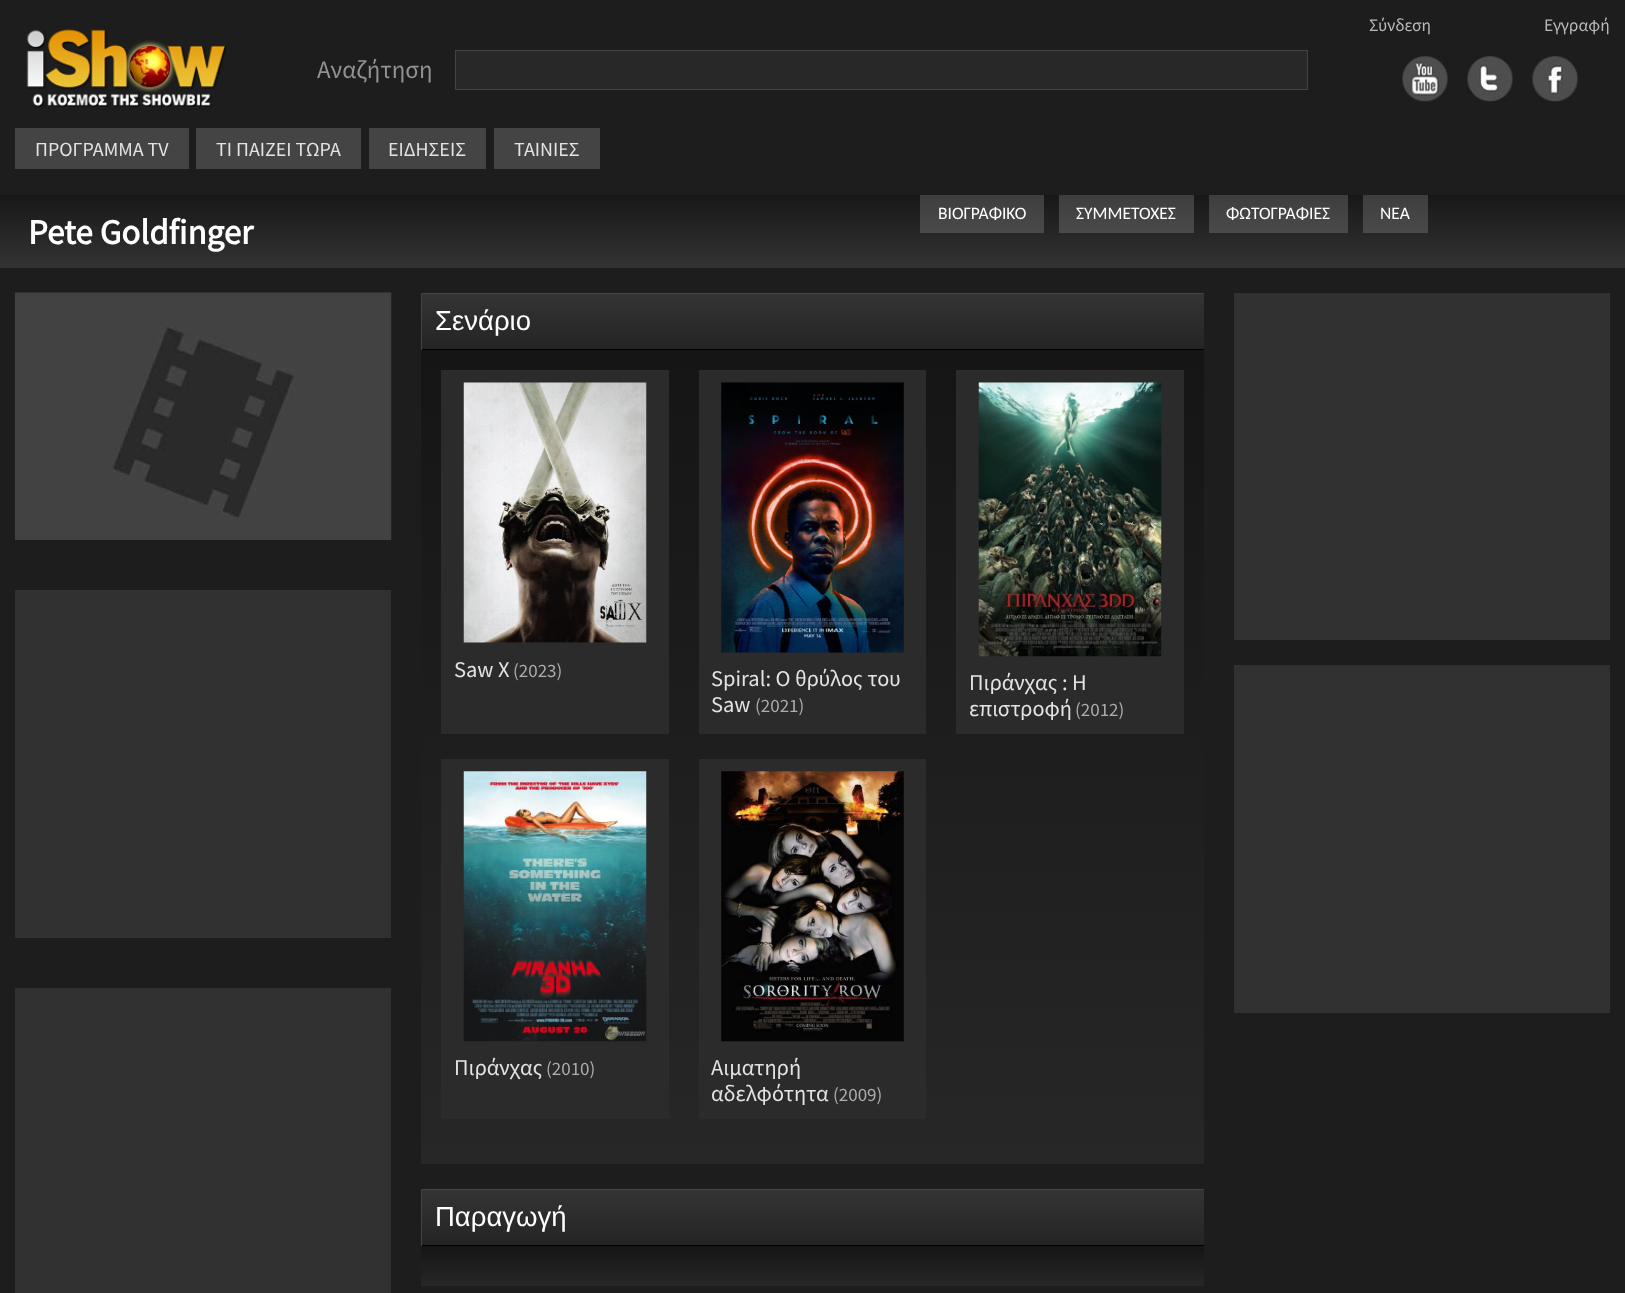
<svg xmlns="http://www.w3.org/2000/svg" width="1625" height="1293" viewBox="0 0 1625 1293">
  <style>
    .t1 { font: 17.5px Source Sans Pro; fill: #b9b9b9; }
    .t2 { font: 25px Source Sans Pro; fill: #929292; }
    .t3 { font: 20px Source Sans Pro; fill: #e3e3e3; }
    .t4 { font: 17.5px Carlito; fill: #fff; }
    .t5 { font: bold 35px Source Sans Pro; fill: #fff; }
    .t6 { font: 27.5px Liberation Sans; fill: #fff; }
    .t7 { font: 22.5px Source Sans Pro; fill: #e3e3e3; }
    .t8 { font: 19px Source Sans Pro; fill: #adadad; }
  </style>
  <defs>
    <linearGradient id="g1" gradientUnits="userSpaceOnUse" x1="813" y1="195" x2="813" y2="268"><stop offset="0" stop-color="#181818"/><stop offset="1" stop-color="#333"/></linearGradient>
    <linearGradient id="g2" gradientUnits="userSpaceOnUse" x1="982" y1="195" x2="982" y2="233"><stop offset="0" stop-color="#3e3e3e"/><stop offset="1" stop-color="#4a4a4a"/></linearGradient>
    <linearGradient id="g3" gradientUnits="userSpaceOnUse" x1="1126" y1="195" x2="1126" y2="233"><stop offset="0" stop-color="#3e3e3e"/><stop offset="1" stop-color="#4a4a4a"/></linearGradient>
    <linearGradient id="g4" gradientUnits="userSpaceOnUse" x1="1278" y1="195" x2="1278" y2="233"><stop offset="0" stop-color="#3e3e3e"/><stop offset="1" stop-color="#4a4a4a"/></linearGradient>
    <linearGradient id="g5" gradientUnits="userSpaceOnUse" x1="1395" y1="195" x2="1395" y2="233"><stop offset="0" stop-color="#3e3e3e"/><stop offset="1" stop-color="#4a4a4a"/></linearGradient>
    <linearGradient id="g6" gradientUnits="userSpaceOnUse" x1="813" y1="294" x2="813" y2="349"><stop offset="0" stop-color="#343434"/><stop offset="1" stop-color="#242424"/></linearGradient>
    <linearGradient id="g7" gradientUnits="userSpaceOnUse" x1="813" y1="350" x2="813" y2="1164"><stop offset="0" stop-color="#151515"/><stop offset="1" stop-color="#272727"/></linearGradient>
    <linearGradient id="g8" gradientUnits="userSpaceOnUse" x1="813" y1="1190" x2="813" y2="1245"><stop offset="0" stop-color="#343434"/><stop offset="1" stop-color="#242424"/></linearGradient>
    <linearGradient id="g9" gradientUnits="userSpaceOnUse" x1="813" y1="1246" x2="813" y2="1286"><stop offset="0" stop-color="#151515"/><stop offset="1" stop-color="#272727"/></linearGradient>
  </defs>
  <rect width="100%" height="100%" fill="#1d1d1d"/>
  <text x="1369" y="31" class="t1">Σύνδεση</text>
  <text x="1544" y="31" class="t1">Εγγραφή</text>
  <image x="1402" y="56" width="46" height="46" href="images/1.png"/>
  <image x="1467" y="56" width="46" height="46" href="images/2.png"/>
  <image x="1532" y="56" width="46" height="46" href="images/3.png"/>
  <image x="26" y="29" width="201" height="78" href="images/4.png"/>
  <text x="317" y="78" class="t2">Αναζήτηση</text>
  <rect x="455.5" y="50.5" width="852" height="39" fill="#282828" stroke="#434343"/>
  <rect x="15" y="128" width="174" height="41" fill="#444"/>
  <text x="35" y="156" class="t3">ΠΡΟΓΡΑΜΜΑ TV</text>
  <rect x="196" y="128" width="165" height="41" fill="#444"/>
  <text x="216" y="156" class="t3">ΤΙ ΠΑΙΖΕΙ ΤΩΡΑ</text>
  <rect x="369" y="128" width="117" height="41" fill="#444"/>
  <text x="388" y="156" class="t3">ΕΙΔΗΣΕΙΣ</text>
  <rect x="494" y="128" width="106" height="41" fill="#444"/>
  <text x="514" y="156" class="t3">ΤΑΙΝΙΕΣ</text>
  <rect x="0" y="195" width="1625" height="73" fill="url(#g1)"/>
  <rect x="920" y="195" width="124" height="38" fill="url(#g2)"/>
  <text x="938" y="219" class="t4">ΒΙΟΓΡΑΦΙΚΟ</text>
  <rect x="1059" y="195" width="135" height="38" fill="url(#g3)"/>
  <text x="1076" y="219" class="t4">ΣΥΜΜΕΤΟΧΕΣ</text>
  <rect x="1209" y="195" width="139" height="38" fill="url(#g4)"/>
  <text x="1226" y="219" class="t4">ΦΩΤΟΓΡΑΦΙΕΣ</text>
  <rect x="1363" y="195" width="65" height="38" fill="url(#g5)"/>
  <text x="1380" y="219" class="t4">ΝΕΑ</text>
  <text x="28" y="244" class="t5">Pete Goldfinger</text>
  <image x="15" y="292" width="377" height="248" href="images/5.png"/>
  <rect x="15" y="590" width="376" height="348" fill="#313131"/>
  <rect x="15" y="988" width="376" height="305" fill="#313131"/>
  <rect x="422" y="294" width="782" height="55" fill="url(#g6)"/>
  <rect x="421" y="293" width="783" height="1" fill="#444"/>
  <rect x="421" y="349" width="783" height="1" fill="#000"/>
  <rect x="421" y="293" width="1" height="57" fill="#444"/>
  <text x="435" y="330" class="t6">Σενάριο</text>
  <rect x="421" y="350" width="783" height="814" fill="url(#g7)"/>
  <rect x="441" y="370" width="228" height="364" fill="#2b2b2b"/>
  <image x="463" y="382" width="184" height="261" href="images/6.png"/>
  <text x="454" y="677" class="t7">Saw X</text>
  <text x="513" y="677" class="t8">(2023)</text>
  <rect x="699" y="370" width="227" height="364" fill="#2b2b2b"/>
  <image x="721" y="382" width="183" height="271" href="images/7.png"/>
  <text x="711" y="686" class="t7">Spiral: Ο θρύλος του</text>
  <text x="711" y="712" class="t7">Saw</text>
  <text x="755" y="712" class="t8">(2021)</text>
  <rect x="956" y="370" width="228" height="364" fill="#2b2b2b"/>
  <image x="978" y="382" width="184" height="275" href="images/8.png"/>
  <text x="969" y="690" class="t7">Πιράνχας : Η</text>
  <text x="969" y="716" class="t7">επιστροφή</text>
  <text x="1075" y="716" class="t8">(2012)</text>
  <rect x="441" y="759" width="228" height="360" fill="#2b2b2b"/>
  <image x="463" y="771" width="184" height="271" href="images/9.png"/>
  <text x="454" y="1075" class="t7">Πιράνχας</text>
  <text x="546" y="1075" class="t8">(2010)</text>
  <rect x="699" y="759" width="227" height="360" fill="#2b2b2b"/>
  <image x="721" y="771" width="183" height="271" href="images/10.png"/>
  <text x="711" y="1075" class="t7">Αιματηρή</text>
  <text x="711" y="1101" class="t7">αδελφότητα</text>
  <text x="833" y="1101" class="t8">(2009)</text>
  <rect x="422" y="1190" width="782" height="55" fill="url(#g8)"/>
  <rect x="421" y="1189" width="783" height="1" fill="#444"/>
  <rect x="421" y="1245" width="783" height="1" fill="#000"/>
  <rect x="421" y="1189" width="1" height="57" fill="#444"/>
  <text x="435" y="1226" class="t6">Παραγωγή</text>
  <rect x="421" y="1246" width="783" height="40" fill="url(#g9)"/>
  <rect x="1234" y="293" width="376" height="347" fill="#313131"/>
  <rect x="1234" y="665" width="376" height="348" fill="#313131"/>
</svg>
